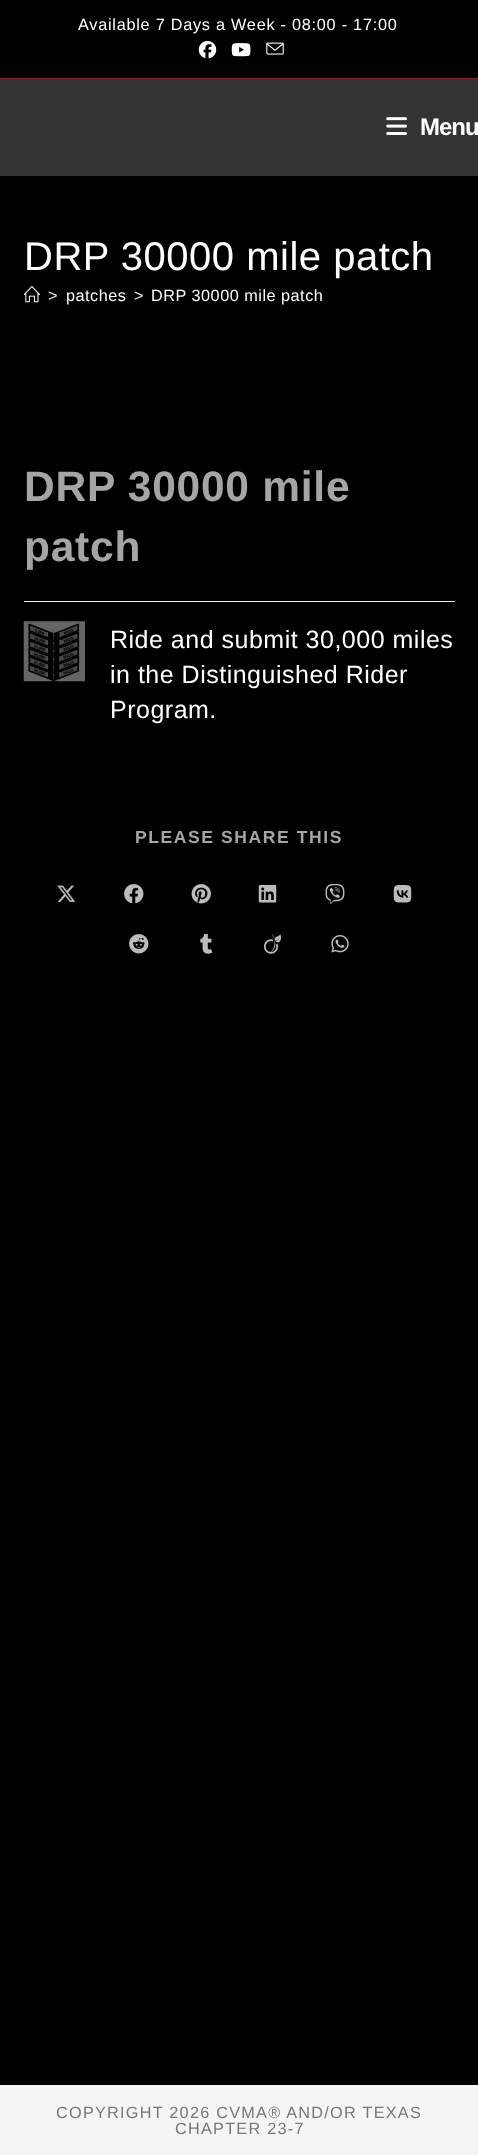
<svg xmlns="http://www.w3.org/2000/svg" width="478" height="2155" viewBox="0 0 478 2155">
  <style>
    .t1 { font: 16.25px Liberation Sans; letter-spacing: 0.75px; fill: #fff; }
    .t2 { font: bold 24px Liberation Sans; letter-spacing: -1px; fill: #fff; }
    .t3 { font: 40px Liberation Sans; letter-spacing: 0.5px; fill: #fff; }
    .t4 { font: 16.25px Liberation Sans; letter-spacing: 0.5px; fill: #e5e5e5; }
    .t5 { font: 16.25px Liberation Sans; letter-spacing: 0.5px; fill: #fff; }
    .t6 { font: bold 42.5px Liberation Sans; letter-spacing: 0.75px; fill: #a5a5a5; }
    .t7 { font: 25px Liberation Sans; letter-spacing: 0.5px; fill: #fff; }
    .t8 { font: bold 17.5px Liberation Sans; letter-spacing: 1.6px; fill: #a5a5a5; }
    .t9 { font: 16.25px Liberation Sans; letter-spacing: 1.25px; fill: #777; }
  </style>
  <rect width="100%" height="100%" fill="#000"/>
  <rect x="0" y="78" width="478" height="1" fill="#c50500"/>
  <text x="78" y="30" class="t1">Available 7 Days a Week - 08:00 - 17:00</text>
  <image x="198" y="40" width="19" height="19" href="images/1.png"/>
  <image x="231" y="43" width="20" height="14" href="images/2.png"/>
  <image x="266" y="42" width="18" height="13" href="images/3.png"/>
  <rect x="0" y="79" width="478" height="97" fill="#333"/>
  <image x="386" y="117" width="21" height="18" href="images/4.png"/>
  <text x="420" y="135" class="t2">Menu</text>
  <text x="24" y="270" class="t3">DRP 30000 mile patch</text>
  <image x="24" y="286" width="16" height="17" href="images/5.png"/>
  <text x="48" y="301" class="t4">&gt;</text>
  <text x="66" y="301" class="t5">patches</text>
  <text x="134" y="301" class="t4">&gt;</text>
  <text x="151" y="301" class="t5">DRP 30000 mile patch</text>
  <rect x="24" y="601" width="431" height="1" fill="#f1f1f1"/>
  <text x="24" y="501" class="t6">DRP 30000 mile</text>
  <text x="24" y="561" class="t6">patch</text>
  <image x="23" y="621" width="62" height="61" href="images/6.png"/>
  <text x="110" y="648" class="t7">Ride and submit 30,000 miles</text>
  <text x="110" y="683" class="t7">in the Distinguished Rider</text>
  <text x="110" y="718" class="t7">Program.</text>
  <text x="135" y="843" class="t8">PLEASE SHARE THIS</text>
  <image x="57" y="885" width="19" height="17" href="images/7.png"/>
  <image x="124" y="884" width="20" height="20" href="images/8.png"/>
  <image x="191" y="884" width="20" height="20" href="images/9.png"/>
  <image x="258" y="885" width="19" height="18" href="images/10.png"/>
  <image x="325" y="884" width="20" height="20" href="images/11.png"/>
  <image x="393" y="885" width="19" height="18" href="images/12.png"/>
  <image x="129" y="934" width="20" height="20" href="images/13.png"/>
  <image x="200" y="934" width="13" height="20" href="images/14.png"/>
  <image x="264" y="934" width="18" height="20" href="images/15.png"/>
  <image x="331" y="935" width="18" height="18" href="images/16.png"/>
  <rect x="0" y="2085" width="478" height="70" fill="#f5f5f5"/>
  <text x="56" y="2118" class="t9">COPYRIGHT 2026 CVMA® AND/OR TEXAS</text>
  <text x="175" y="2134" class="t9">CHAPTER 23-7</text>
</svg>
